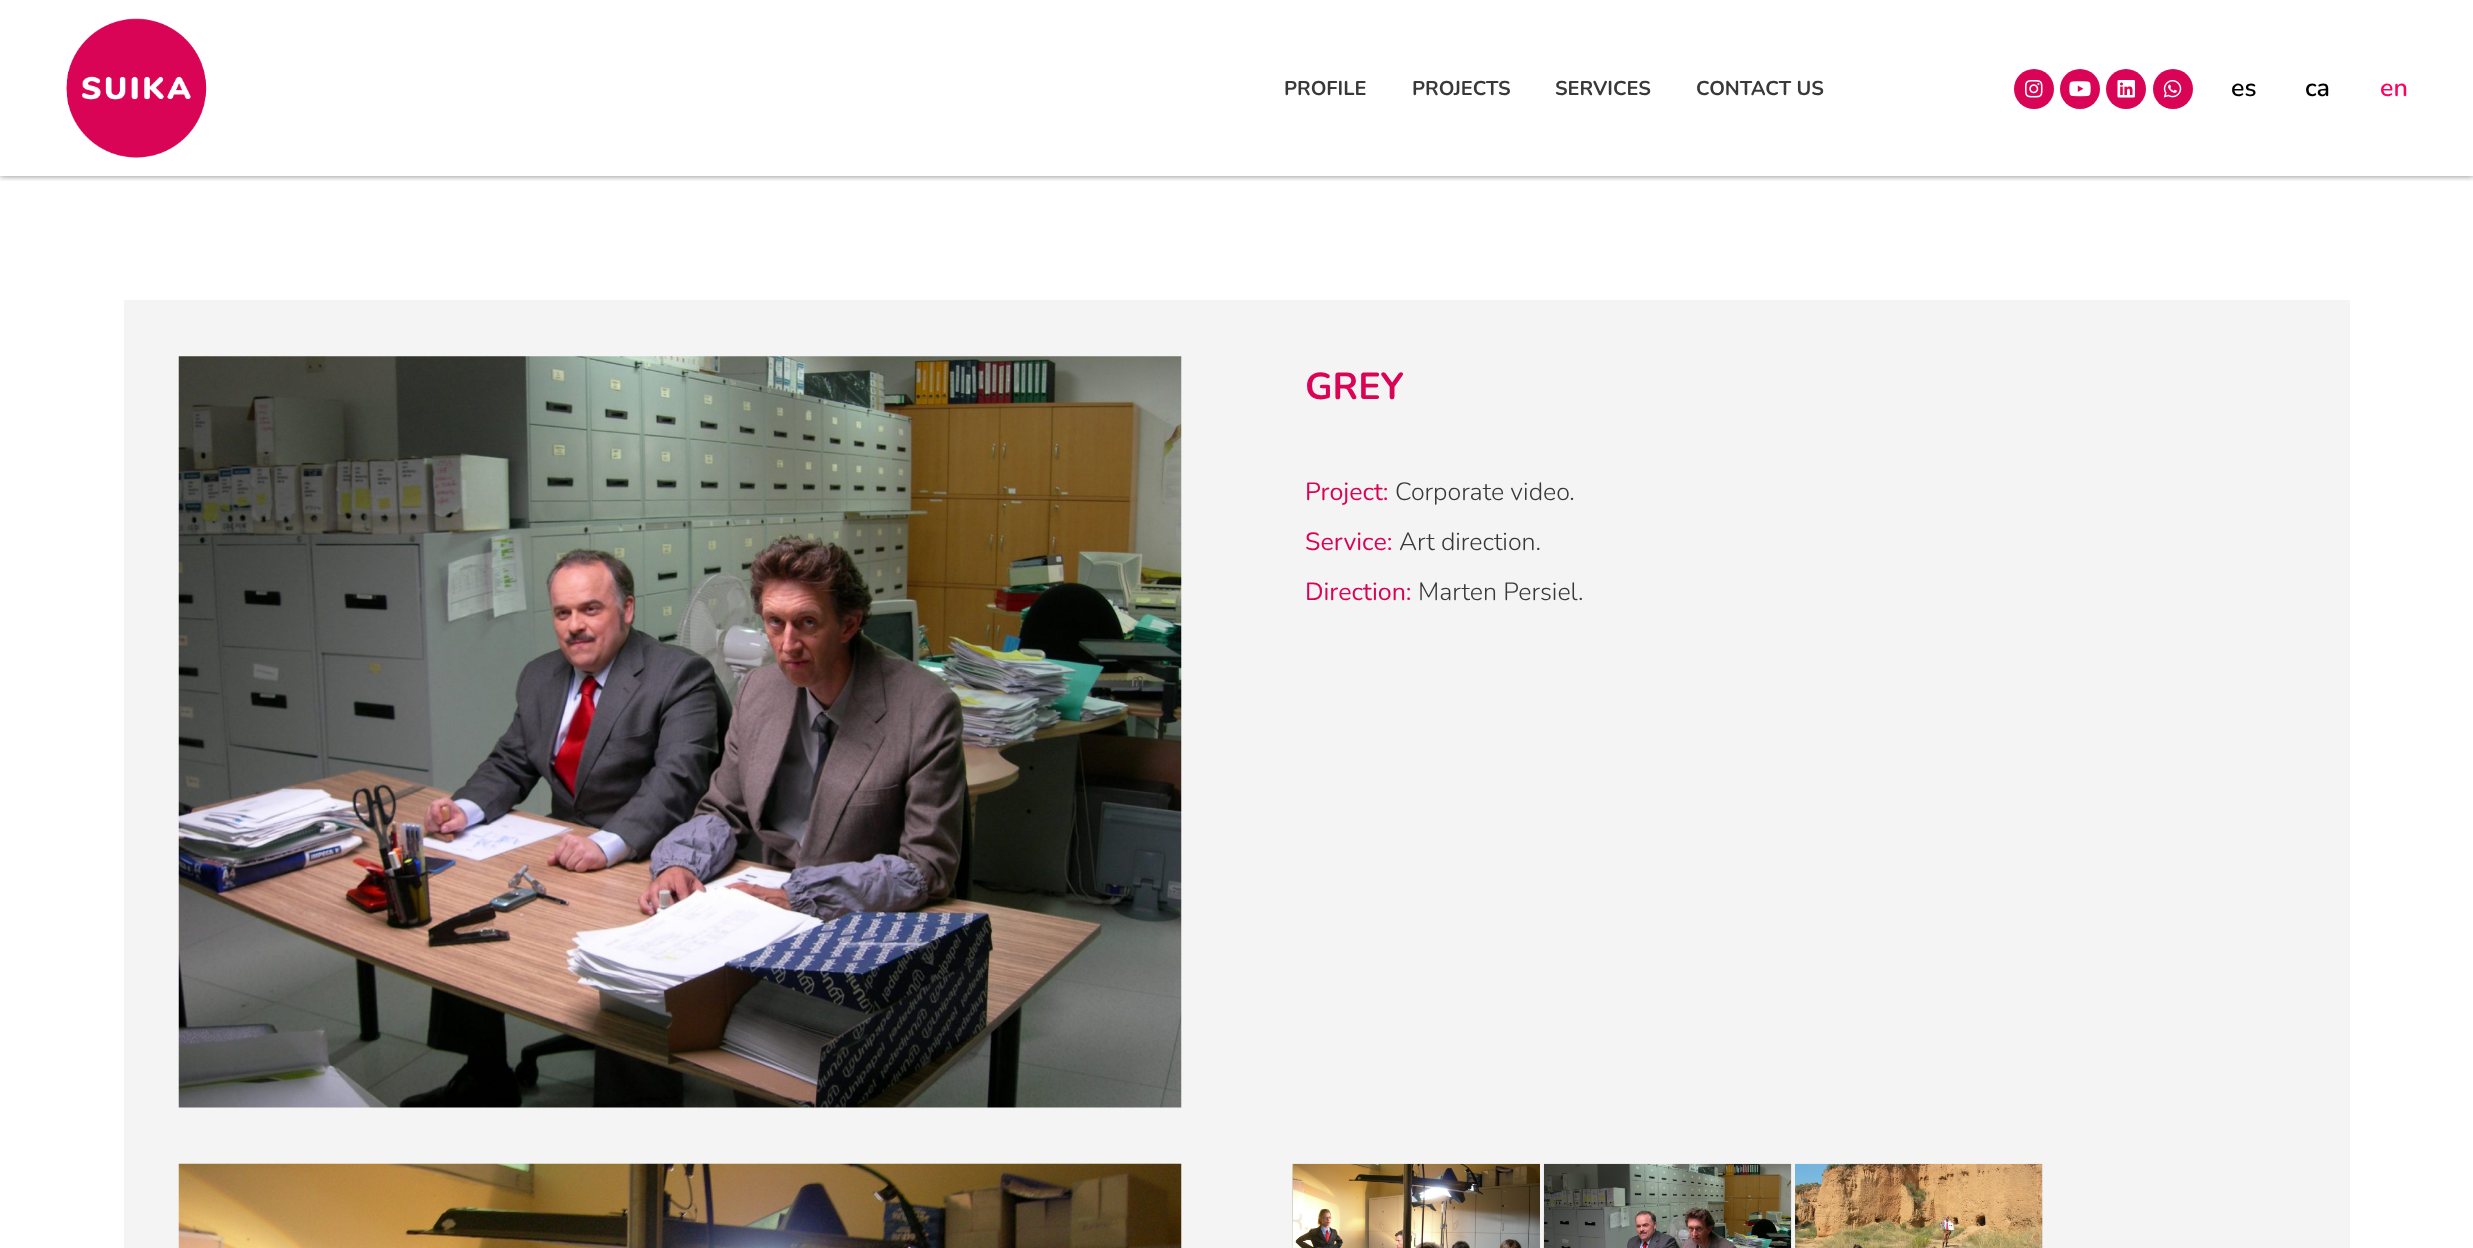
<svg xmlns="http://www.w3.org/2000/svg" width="2473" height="1248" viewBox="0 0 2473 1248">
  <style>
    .t1 { font: bold 20px Nunito; fill: #393939; }
    .t2 { font: 600 25px Nunito; fill: #000; }
    .t3 { font: 600 25px Nunito; fill: #ff0060; }
    .t4 { font: bold 37.5px Nunito; fill: #d90455; }
    .t5 { font: 25px Nunito; fill: #d90455; }
    .t6 { font: 300 25px Nunito; fill: #393939; }
  </style>
  <defs>
    <clipPath id="clip1"><rect x="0" y="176" width="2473" height="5"/></clipPath>
  </defs>
  <rect width="100%" height="100%" fill="#fff"/>
  <g clip-path="url(#clip1)">
    <rect x="0" y="0" width="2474" height="176" fill="#00000080" filter="blur(3px)"/>
  </g>
  <image x="66" y="18" width="141" height="140" href="images/1.png"/>
  <text x="1284" y="95" class="t1">PROFILE</text>
  <text x="1412" y="95" class="t1">PROJECTS</text>
  <text x="1555" y="95" class="t1">SERVICES</text>
  <text x="1696" y="95" class="t1">CONTACT US</text>
  <circle cx="2034" cy="89" r="20" fill="#d90455"/>
  <image x="2025" y="79" width="18" height="19" href="images/2.png"/>
  <circle cx="2080" cy="89" r="20" fill="#d90455"/>
  <image x="2069" y="81" width="22" height="16" href="images/3.png"/>
  <circle cx="2126" cy="89" r="20" fill="#d90455"/>
  <image x="2117" y="80" width="18" height="18" href="images/4.png"/>
  <circle cx="2173" cy="89" r="20" fill="#d90455"/>
  <image x="2163" y="80" width="19" height="18" href="images/5.png"/>
  <text x="2231" y="96" class="t2">es</text>
  <text x="2305" y="96" class="t2">ca</text>
  <text x="2380" y="96" class="t3">en</text>
  <rect x="124" y="300" width="2226" height="808" fill="#f4f4f4"/>
  <image x="178" y="356" width="1004" height="752" href="images/6.png"/>
  <text x="1305" y="399" class="t4">GREY</text>
  <text x="1305" y="500" class="t5">Project:</text>
  <text x="1395" y="500" class="t6">Corporate video.</text>
  <text x="1305" y="550" class="t5">Service:</text>
  <text x="1399" y="550" class="t6">Art direction.</text>
  <text x="1305" y="600" class="t5">Direction:</text>
  <text x="1418" y="600" class="t6">Marten Persiel.</text>
  <rect x="124" y="1108" width="2226" height="140" fill="#f4f4f4"/>
  <image x="178" y="1163" width="1004" height="85" href="images/7.png"/>
  <image x="1292" y="1163" width="248" height="85" href="images/8.png"/>
  <image x="1543" y="1163" width="249" height="85" href="images/9.png"/>
  <image x="1795" y="1163" width="248" height="85" href="images/10.png"/>
</svg>
